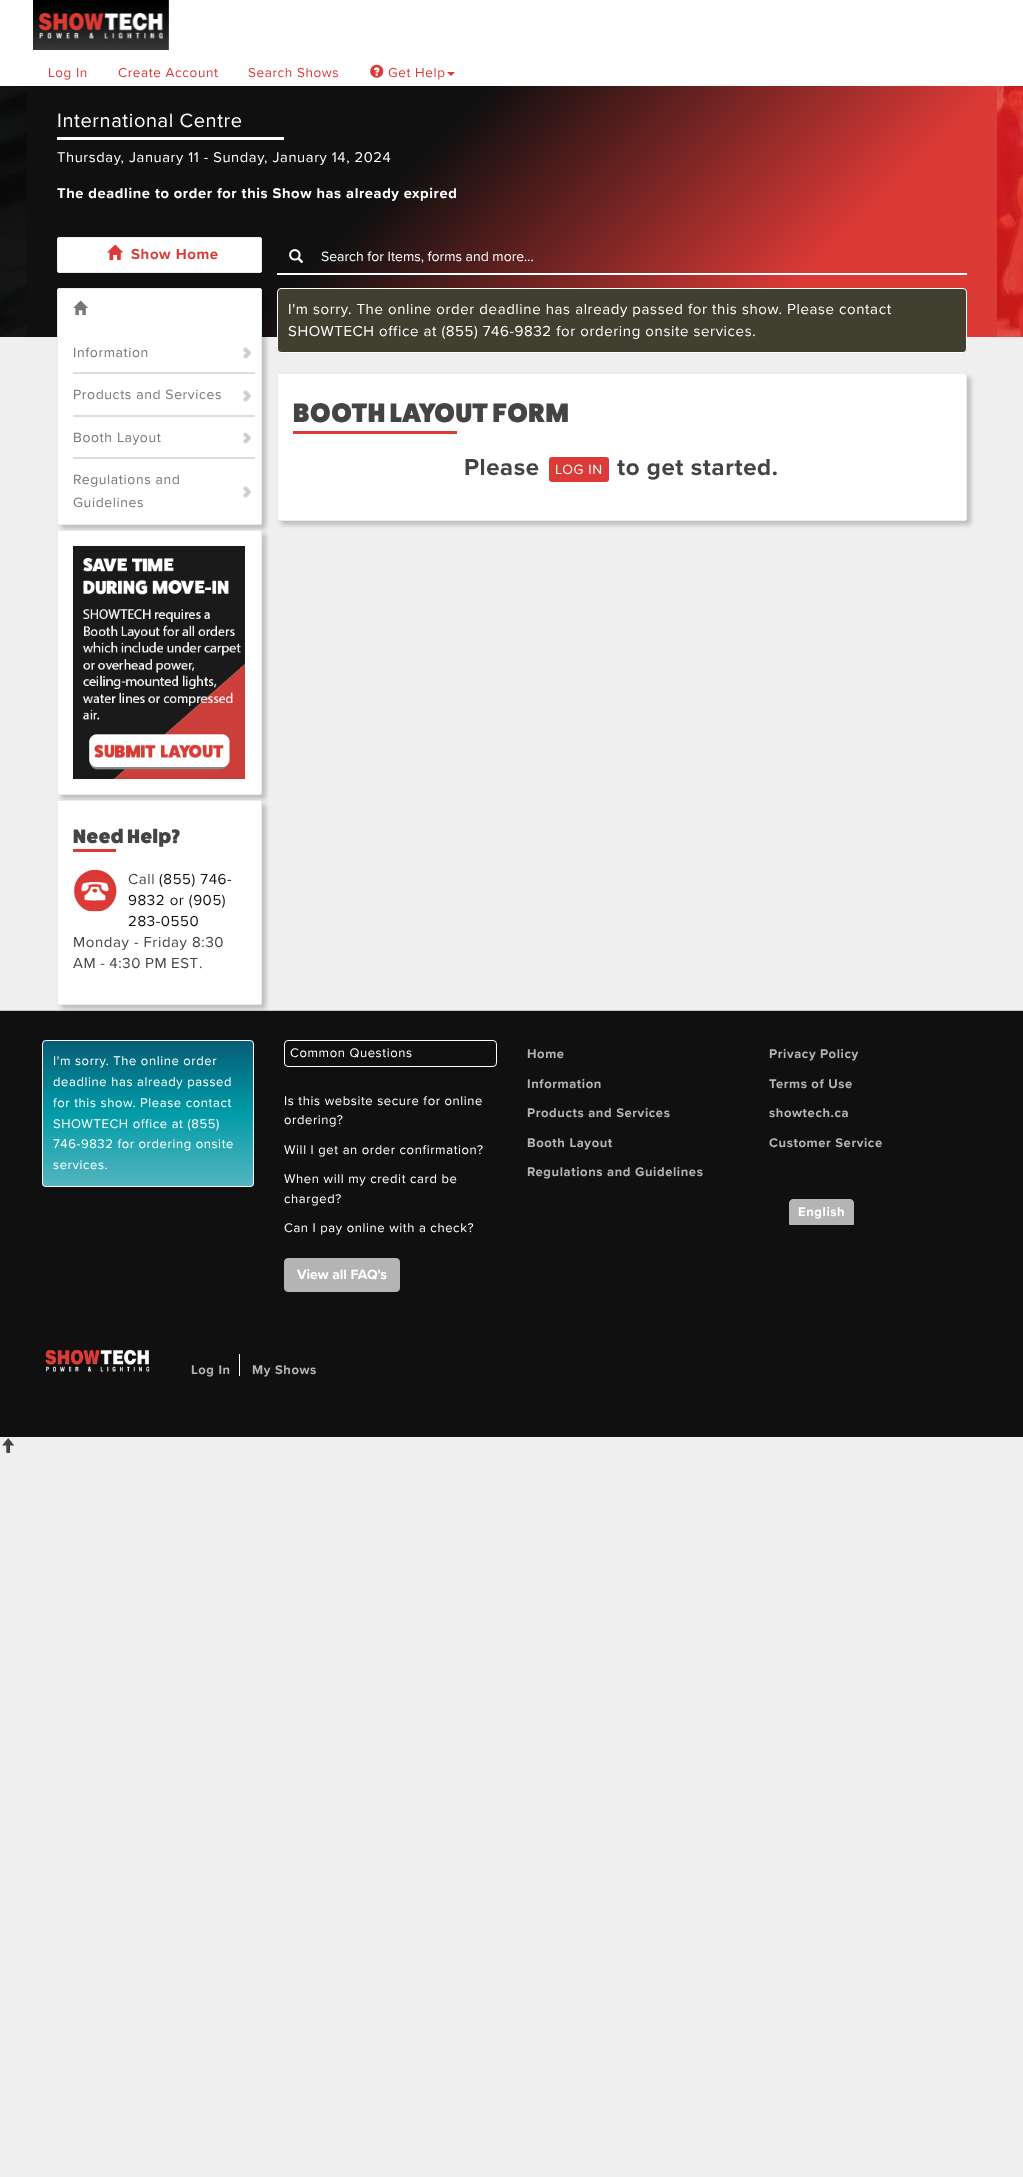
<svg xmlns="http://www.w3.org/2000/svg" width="1023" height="2177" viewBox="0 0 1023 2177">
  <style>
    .t1 { font: 13.5px Proxima Nova; letter-spacing: 0.6px; fill: #dc3a36; }
    .t2 { font: 20px Proxima Nova; letter-spacing: 0.6px; fill: #fff; }
    .t3 { font: 14.7px Proxima Nova; letter-spacing: 0.6px; fill: #fff; }
    .t4 { font: bold 14.7px Proxima Nova; letter-spacing: 0.6px; fill: #fff; }
    .t5 { font: bold 15px Proxima Nova; letter-spacing: 0.6px; fill: #dc3a36; }
    .t6 { font: 14px Proxima Nova; fill: #fff; }
    .t7 { font: 14px Proxima Nova; letter-spacing: 0.6px; fill: #777; }
    .t8 { font: 900 19.5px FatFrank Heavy; letter-spacing: 0.6px; fill: #444; }
    .t9 { font: 15px Proxima Nova; letter-spacing: 0.6px; fill: #444; }
    .t10 { font: 15px Proxima Nova; letter-spacing: 0.6px; fill: #101010; }
    .t11 { font: 15px Proxima Nova; letter-spacing: 0.6px; fill: #fff; }
    .t12 { font: 900 27px FatFrank Heavy; letter-spacing: 0.6px; fill: #444; }
    .t13 { font: bold 24px Proxima Nova; letter-spacing: 0.6px; fill: #444; }
    .t14 { font: 14px Proxima Nova; letter-spacing: 0.6px; fill: #fff; }
    .t15 { font: 13px Proxima Nova; letter-spacing: 0.6px; fill: #fff; }
    .t16 { font: bold 14px Proxima Nova; fill: #fff; }
    .t17 { font: bold 13px Proxima Nova; letter-spacing: 0.6px; fill: #b4b4b4; }
    .t18 { font: bold 13px Proxima Nova; letter-spacing: 0.6px; fill: #fff; }
  </style>
  <defs>
    <linearGradient id="g1" gradientUnits="userSpaceOnUse" x1="198" y1="-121" x2="826" y2="508"><stop offset="0.4" stop-color="#101010"/><stop offset="0.8" stop-color="#dc3a36"/></linearGradient>
  </defs>
  <rect width="100%" height="100%" fill="#efefef"/>
  <rect x="0" y="0" width="1023" height="86" fill="#fff"/>
  <image x="33" y="0" width="136" height="50" href="images/1.png"/>
  <text x="48" y="77" class="t1">Log In</text>
  <text x="118" y="77" class="t1">Create Account</text>
  <text x="248" y="77" class="t1">Search Shows</text>
  <image x="370" y="64" width="14" height="14" href="images/2.png"/>
  <text x="388" y="77" class="t1">Get Help</text>
  <path d="M447 72H455L451 76Z" fill="#dc3a36"/>
  <image x="0" y="86" width="1023" height="251" href="images/3.png"/>
  <rect x="27" y="86" width="970" height="251" fill="url(#g1)"/>
  <text x="57" y="127" class="t2">International Centre</text>
  <rect x="57" y="137" width="227" height="3" fill="#fff"/>
  <text x="57" y="162" class="t3">Thursday, January 11 - Sunday, January 14, 2024</text>
  <text x="57" y="198" class="t4">The deadline to order for this Show has already expired</text>
  <rect x="57.5" y="237.5" width="204" height="35" rx="1.5" fill="#fff" stroke="#ebebeb"/>
  <image x="107" y="244" width="16" height="16" href="images/4.png"/>
  <text x="131" y="259" class="t5">Show Home</text>
  <rect x="277" y="273" width="690" height="2" fill="#fff"/>
  <image x="289" y="249" width="15" height="14" href="images/5.png"/>
  <text x="321" y="261" class="t6">Search for Items, forms and more…</text>
  <rect x="61" y="292" width="205" height="237" rx="2" fill="#00000033" filter="blur(2px)"/>
  <rect x="57.5" y="288.5" width="204" height="236" rx="1.5" fill="#fff" stroke="#ebebeb"/>
  <image x="73" y="300" width="15" height="15" href="images/6.png"/>
  <image x="243" y="347" width="8" height="12" href="images/7.png"/>
  <text x="73" y="357" class="t7">Information</text>
  <rect x="73" y="372" width="182" height="2" fill="#ddd"/>
  <image x="243" y="390" width="8" height="12" href="images/7.png"/>
  <text x="73" y="399" class="t7">Products and Services</text>
  <rect x="73" y="415" width="182" height="2" fill="#ddd"/>
  <image x="243" y="432" width="8" height="12" href="images/7.png"/>
  <text x="73" y="442" class="t7">Booth Layout</text>
  <rect x="73" y="457" width="182" height="2" fill="#ddd"/>
  <image x="243" y="486" width="8" height="12" href="images/7.png"/>
  <text x="73" y="484" class="t7">Regulations and</text>
  <text x="73" y="507" class="t7">Guidelines</text>
  <rect x="61" y="534" width="205" height="265" rx="2" fill="#00000033" filter="blur(2px)"/>
  <rect x="57.5" y="530.5" width="204" height="264" rx="1.5" fill="#fff" stroke="#ebebeb"/>
  <image x="73" y="546" width="172" height="233" href="images/8.png"/>
  <rect x="0" y="1011" width="1023" height="426" fill="#101010"/>
  <rect x="0" y="1010" width="1023" height="1" fill="#c4c4c4"/>
  <rect x="61" y="804" width="205" height="205" rx="2" fill="#00000033" filter="blur(2px)"/>
  <rect x="57.5" y="800.5" width="204" height="204" rx="1.5" fill="#fff" stroke="#ebebeb"/>
  <text x="73" y="843" class="t8">Need Help?</text>
  <rect x="73" y="849" width="43" height="3" fill="#dc3a36"/>
  <rect x="74" y="870" width="43" height="42" fill="#dc3a36"/>
  <image x="73" y="869" width="45" height="44" href="images/9.png"/>
  <text x="128" y="884" class="t9">Call</text>
  <text x="159" y="884" class="t10">(855) 746-</text>
  <text x="128" y="905" class="t10">9832 or (905)</text>
  <text x="128" y="926" class="t10">283-0550</text>
  <text x="73" y="947" class="t9">Monday - Friday 8:30</text>
  <text x="73" y="968" word-spacing="-0.5" class="t9">AM - 4:30 PM EST</text>
  <text x="199" y="968" class="t9">.</text>
  <rect x="277.5" y="288.5" width="689" height="64" rx="3.5" fill="#413f2f" stroke="#fff"/>
  <text x="288" y="314" class="t11">I'm sorry. The online order deadline has already passed for this show. Please contact</text>
  <text x="288" y="336" class="t11">SHOWTECH office at (855) 746-9832 for ordering onsite services.</text>
  <rect x="281" y="377" width="690" height="148" rx="2" fill="#00000033" filter="blur(2px)"/>
  <rect x="277.5" y="373.5" width="689" height="147" rx="1.5" fill="#fff" stroke="#ebebeb"/>
  <text x="293" y="422" class="t12">BOOTH LAYOUT FORM</text>
  <rect x="293" y="431" width="164" height="3" fill="#dc3a36"/>
  <text x="464" y="475" class="t13">Please</text>
  <rect x="549" y="457" width="60" height="25" rx="3" fill="#dc3a36"/>
  <text x="555" y="474" class="t14">LOG IN</text>
  <text x="617" y="475" class="t13">to get started.</text>
  <image x="42" y="1040" width="212" height="147" href="images/10.png"/>
  <rect x="42.5" y="1040.5" width="211" height="146" rx="3.5" fill="none" stroke="#fff"/>
  <text x="53" y="1065" class="t15">I'm sorry. The online order</text>
  <text x="53" y="1086" class="t15">deadline has already passed</text>
  <text x="53" y="1107" class="t15">for this show. Please contact</text>
  <text x="53" y="1128" class="t15">SHOWTECH office at (855)</text>
  <text x="53" y="1148" class="t15">746-9832 for ordering onsite</text>
  <text x="53" y="1169" class="t15">services.</text>
  <rect x="284.5" y="1040.5" width="212" height="26" rx="3.5" fill="none" stroke="#fff"/>
  <text x="290" y="1057" class="t15">Common Questions</text>
  <text x="284" y="1105" class="t15">Is this website secure for online</text>
  <text x="284" y="1124" class="t15">ordering?</text>
  <text x="284" y="1154" class="t15">Will I get an order confirmation?</text>
  <text x="284" y="1183" class="t15">When will my credit card be</text>
  <text x="284" y="1203" class="t15">charged?</text>
  <text x="284" y="1232" class="t15">Can I pay online with a check?</text>
  <rect x="284.5" y="1258.5" width="115" height="33" rx="3.5" fill="#b4b4b4" stroke="#b4b4b4"/>
  <text x="297" y="1279" class="t16">View all FAQ's</text>
  <text x="527" y="1058" class="t17">Home</text>
  <text x="527" y="1088" class="t17">Information</text>
  <text x="527" y="1117" class="t17">Products and Services</text>
  <text x="527" y="1147" class="t17">Booth Layout</text>
  <text x="527" y="1176" class="t17">Regulations and Guidelines</text>
  <text x="769" y="1058" class="t17">Privacy Policy</text>
  <text x="769" y="1088" class="t17">Terms of Use</text>
  <text x="769" y="1117" class="t17">showtech.ca</text>
  <text x="769" y="1147" class="t17">Customer Service</text>
  <path d="M793 1199.5H850C852 1199.5 853.5 1201 853.5 1203V1224.5H789.5V1203C789.5 1201 791 1199.5 793 1199.5Z" fill="#b4b4b4" stroke="#b4b4b4"/>
  <text x="798" y="1216" class="t18">English</text>
  <image x="45" y="1349" width="105" height="23" href="images/11.png"/>
  <text x="191" y="1374" class="t17">Log In</text>
  <rect x="239" y="1354" width="1" height="22" fill="#fff"/>
  <text x="252" y="1374" class="t17">My Shows</text>
  <image x="2" y="1438" width="12" height="15" href="images/12.png"/>
</svg>
